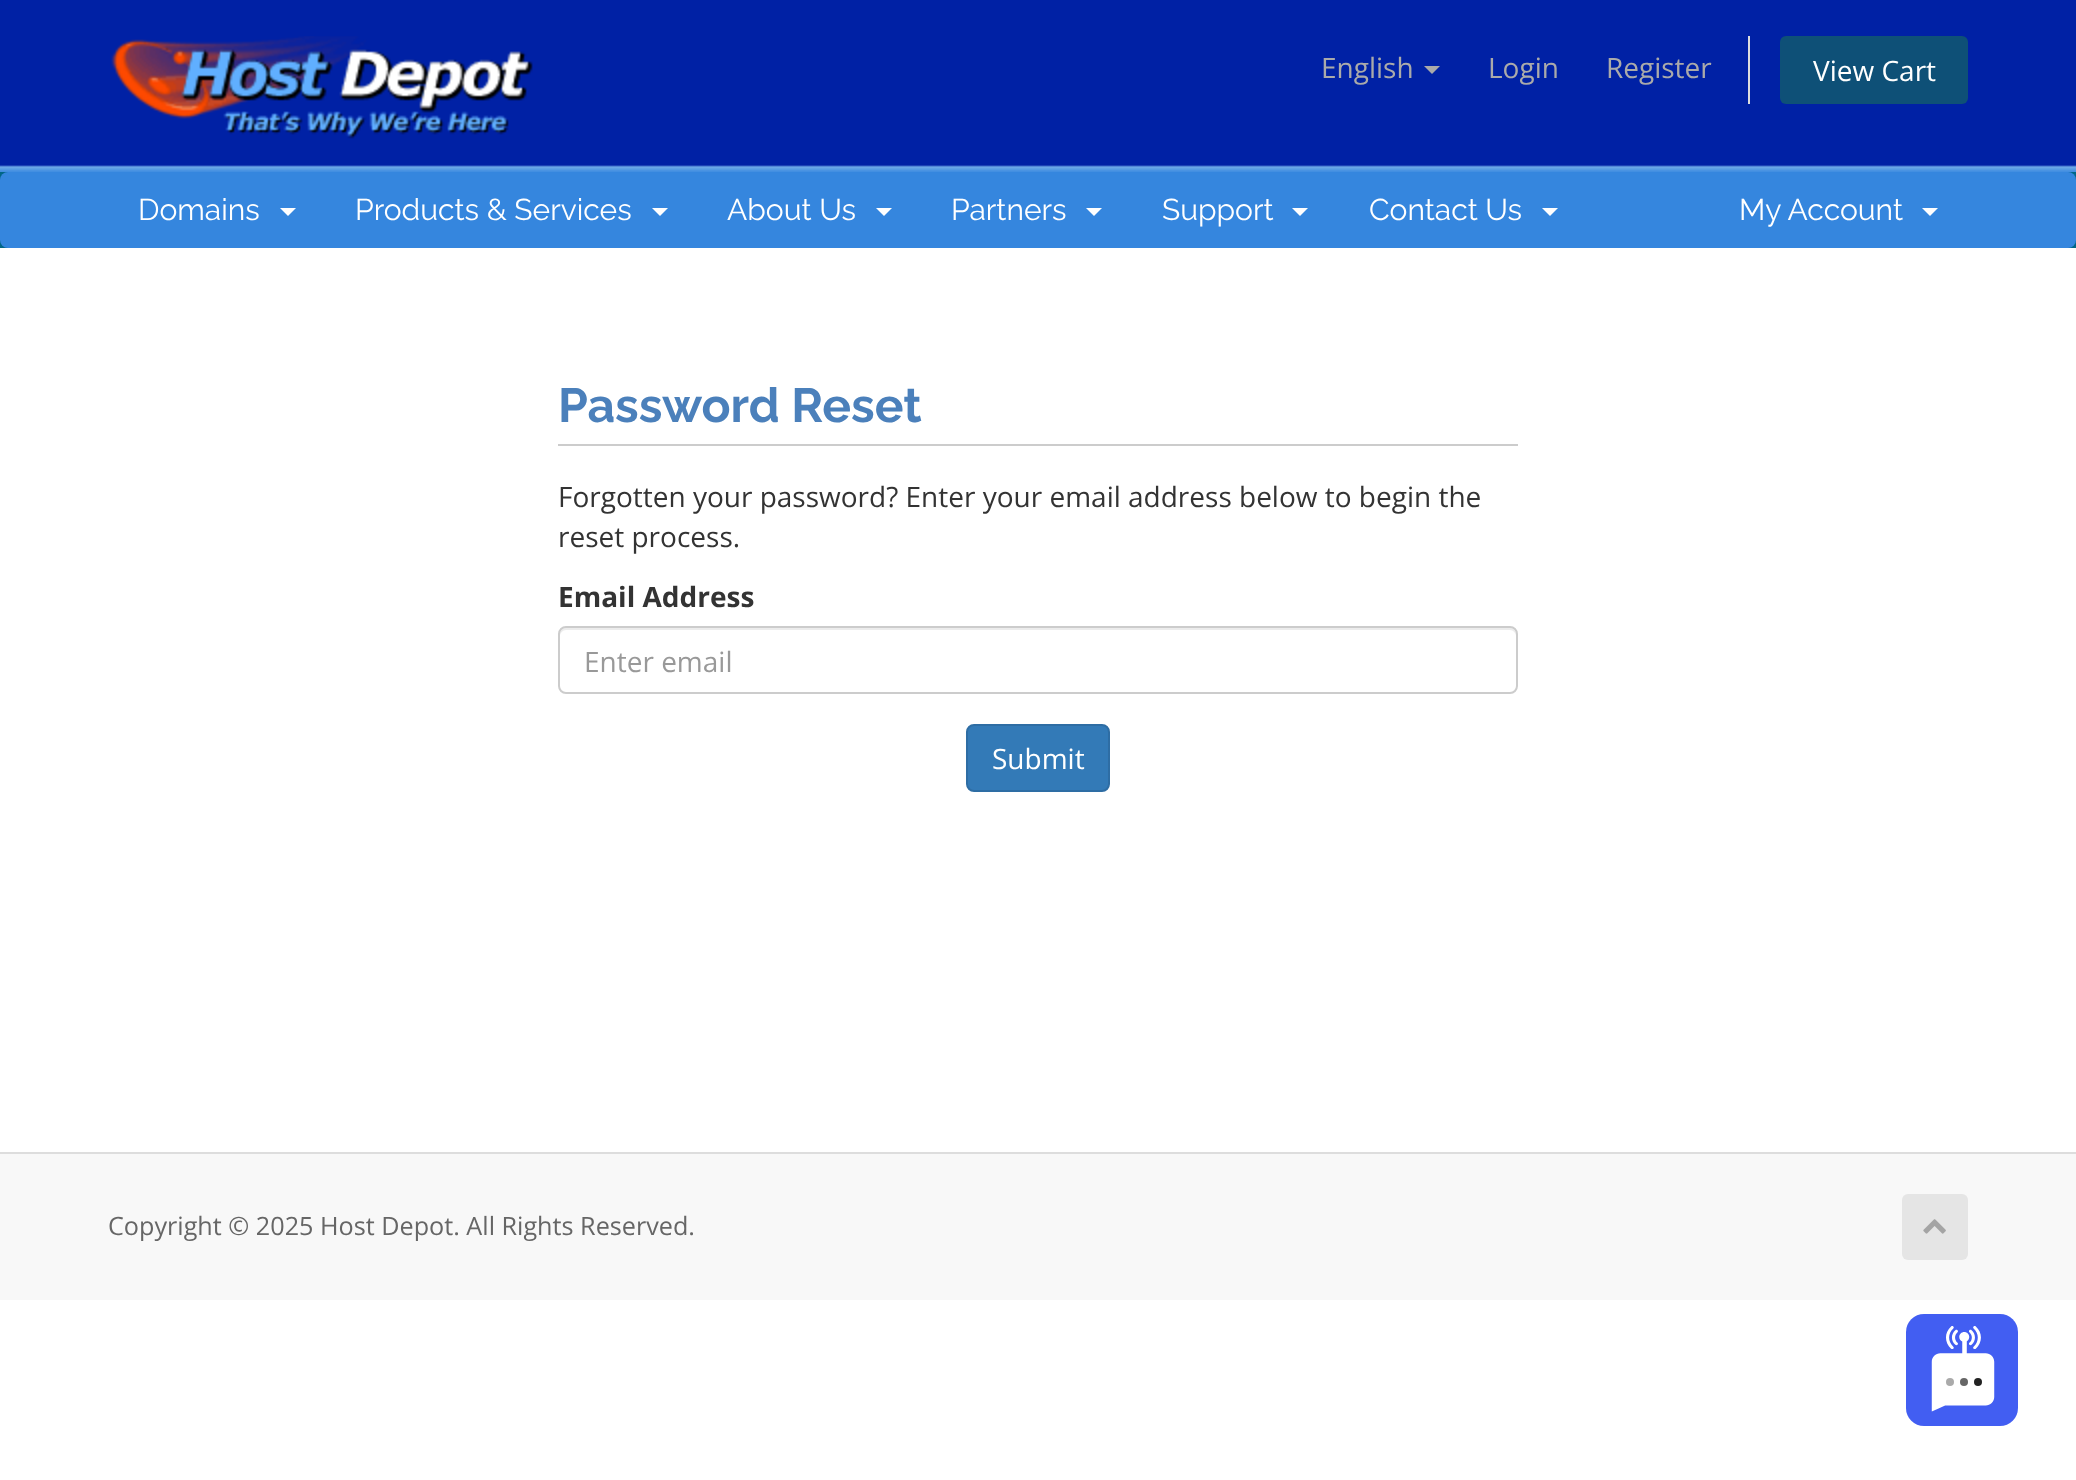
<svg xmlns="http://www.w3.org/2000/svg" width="2076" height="1480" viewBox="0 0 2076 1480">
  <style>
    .t1 { font: 28px Open Sans; fill: #aaa; }
    .t2 { font: 28px Open Sans; fill: #fff; }
    .t3 { font: 30px Raleway; fill: #fff; }
    .t4 { font: bold 48px Raleway; fill: #4b80bb; }
    .t5 { font: 28px Open Sans; fill: #333; }
    .t6 { font: bold 28px Open Sans; fill: #333; }
    .t7 { font: 28px Open Sans; fill: #999; }
    .t8 { font: 25.2px Open Sans; fill: #666; }
  </style>
  <rect width="100%" height="100%" fill="#fff"/>
  <image x="0" y="0" width="2076" height="1480" href="images/1.png"/>
  <image x="111" y="36" width="422" height="103" href="images/2.png"/>
  <text x="1321" y="78" class="t1">English</text>
  <path d="M1424 66H1440L1432 74Z" fill="#aaa"/>
  <text x="1488" y="78" class="t1">Login</text>
  <text x="1606" y="78" class="t1">Register</text>
  <rect x="1748" y="36" width="2" height="68" fill="#ddd"/>
  <rect x="1780" y="36" width="188" height="68" rx="6" fill="#0e5077"/>
  <text x="1813" y="81" class="t2">View Cart</text>
  <rect x="0" y="172" width="2076" height="76" fill="#006687"/>
  <rect x="0" y="172" width="2076" height="76" rx="8" fill="#3586de"/>
  <text x="138" y="220" class="t3">Domains</text>
  <path d="M280 208H296L288 216Z" fill="#fff"/>
  <text x="355" y="220" class="t3">Products &amp; Services</text>
  <path d="M652 208H668L660 216Z" fill="#fff"/>
  <text x="727" y="220" class="t3">About Us</text>
  <path d="M876 208H892L884 216Z" fill="#fff"/>
  <text x="951" y="220" class="t3">Partners</text>
  <path d="M1086 208H1102L1094 216Z" fill="#fff"/>
  <text x="1162" y="220" class="t3">Support</text>
  <path d="M1292 208H1308L1300 216Z" fill="#fff"/>
  <text x="1369" y="220" class="t3">Contact Us</text>
  <path d="M1542 208H1558L1550 216Z" fill="#fff"/>
  <text x="1739" y="220" class="t3">My Account</text>
  <path d="M1922 208H1938L1930 216Z" fill="#fff"/>
  <rect x="0" y="248" width="2076" height="5" fill="#fff"/>
  <rect x="558" y="444" width="960" height="2" fill="#ccc"/>
  <text x="558" y="422" class="t4">Password Reset</text>
  <text x="558" y="507" class="t5">Forgotten your password? Enter your email address below to begin the</text>
  <text x="558" y="547" class="t5">reset process.</text>
  <text x="558" y="607" class="t6">Email Address</text>
  <path d="M566 630H1510C1513 630 1516 633 1516 636V634C1516 631 1513 628 1510 628H566C563 628 560 631 560 634V636C560 633 563 630 566 630Z" fill="#ececec"/>
  <rect x="559" y="627" width="958" height="66" rx="7" fill="none" stroke="#ccc" stroke-width="2"/>
  <text x="584" y="672" class="t7">Enter email</text>
  <rect x="967" y="725" width="142" height="66" rx="7" fill="#337ab7" stroke="#2e6da4" stroke-width="2"/>
  <text x="992" y="769" class="t2">Submit</text>
  <rect x="0" y="1154" width="2076" height="146" fill="#f8f8f8"/>
  <rect x="0" y="1152" width="2076" height="2" fill="#ddd"/>
  <text x="108" y="1235" class="t8">Copyright © 2025 Host Depot. All Rights Reserved.</text>
  <rect x="1902" y="1194" width="66" height="66" rx="6" fill="#e5e5e5"/>
  <image x="1923" y="1219" width="23" height="15" href="images/3.png"/>
  <image x="1906" y="1314" width="112" height="112" href="images/4.png"/>
</svg>
